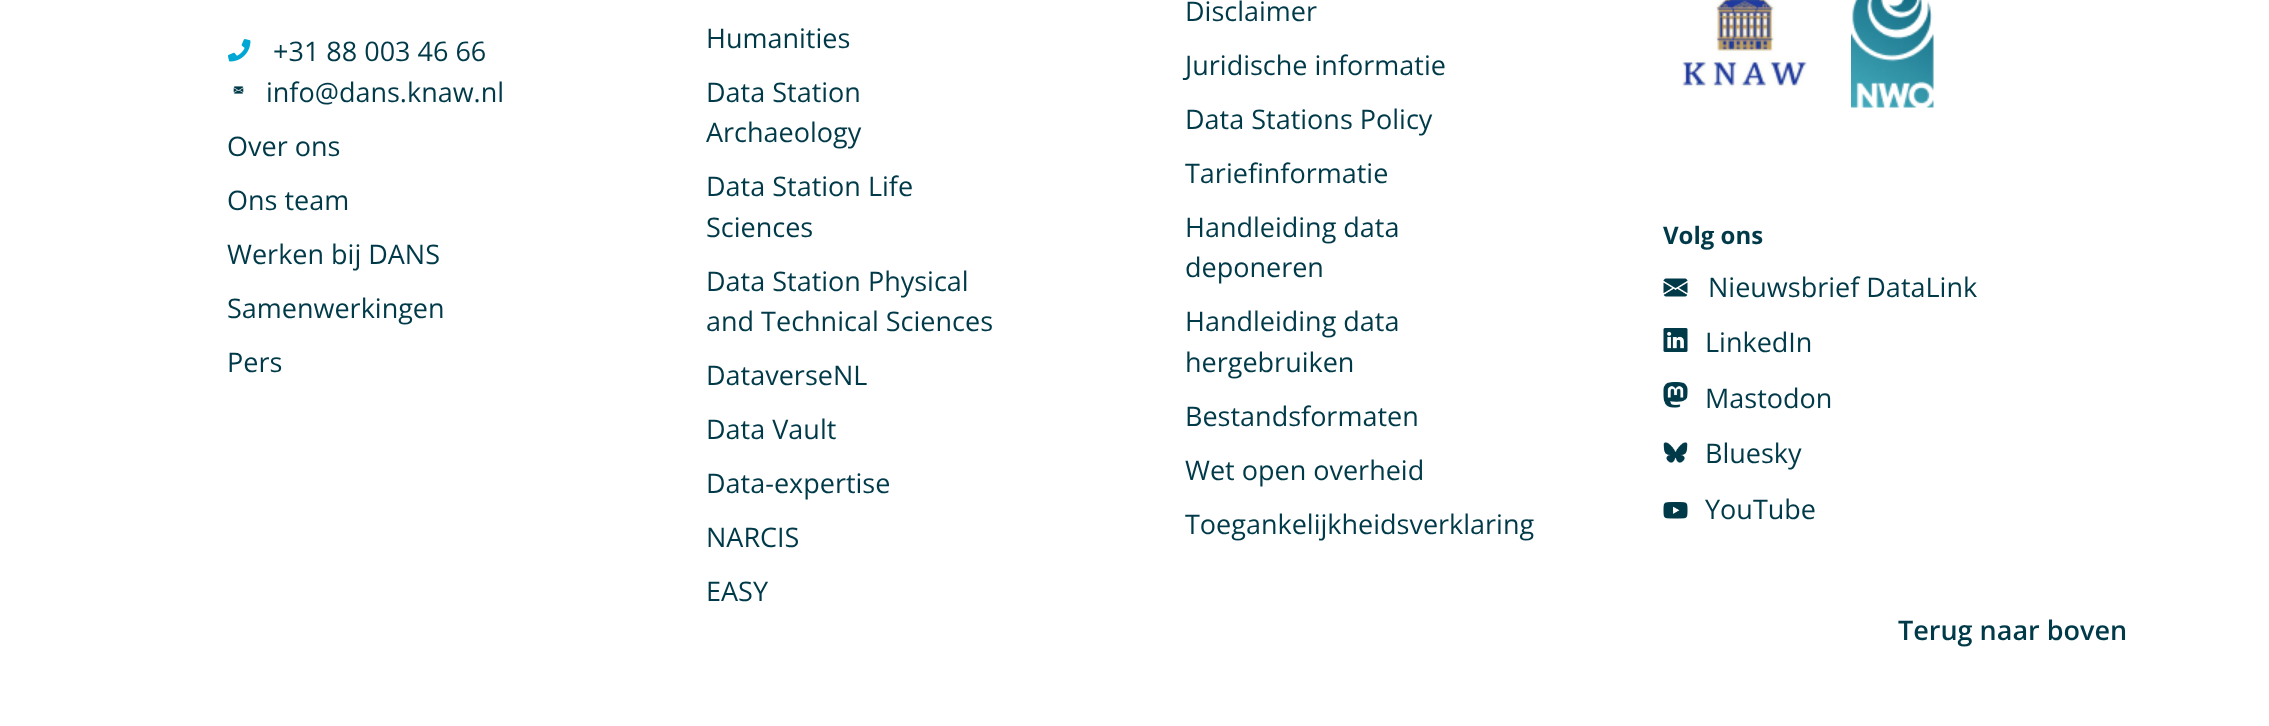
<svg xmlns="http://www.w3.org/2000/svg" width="2269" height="726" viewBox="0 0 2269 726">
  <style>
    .t1 { font: 27px Open Sans; fill: #003a49; }
    .t2 { font: bold 24px Open Sans; fill: #003a49; }
    .t3 { font: 600 27px Open Sans; fill: #003a49; }
  </style>
  <rect width="100%" height="100%" fill="#fff"/>
  <image x="228" y="39" width="23" height="23" href="images/1.png"/>
  <text x="273" y="61" class="t1">+31 88 003 46 66</text>
  <image x="233" y="86" width="11" height="8" href="images/2.png"/>
  <text x="266" y="102" class="t1">info@dans.knaw.nl</text>
  <text x="227" y="156" class="t1">Over ons</text>
  <text x="227" y="210" class="t1">Ons team</text>
  <text x="227" y="264" class="t1">Werken bij DANS</text>
  <text x="227" y="318" class="t1">Samenwerkingen</text>
  <text x="227" y="372" class="t1">Pers</text>
  <text x="706" y="48" class="t1">Humanities</text>
  <text x="706" y="102" class="t1">Data Station</text>
  <text x="706" y="142" class="t1">Archaeology</text>
  <text x="706" y="196" class="t1">Data Station Life</text>
  <text x="706" y="237" class="t1">Sciences</text>
  <text x="706" y="291" class="t1">Data Station Physical</text>
  <text x="706" y="331" class="t1">and Technical Sciences</text>
  <text x="706" y="385" class="t1">DataverseNL</text>
  <text x="706" y="439" class="t1">Data Vault</text>
  <text x="706" y="493" class="t1">Data-expertise</text>
  <text x="706" y="547" class="t1">NARCIS</text>
  <text x="706" y="601" class="t1">EASY</text>
  <text x="1185" y="21" class="t1">Disclaimer</text>
  <text x="1185" y="75" class="t1">Juridische informatie</text>
  <text x="1185" y="129" class="t1">Data Stations Policy</text>
  <text x="1185" y="183" class="t1">Tariefinformatie</text>
  <text x="1185" y="237" class="t1">Handleiding data</text>
  <text x="1185" y="277" class="t1">deponeren</text>
  <text x="1185" y="331" class="t1">Handleiding data</text>
  <text x="1185" y="372" class="t1">hergebruiken</text>
  <text x="1185" y="426" class="t1">Bestandsformaten</text>
  <text x="1185" y="480" class="t1">Wet open overheid</text>
  <text x="1185" y="534" class="t1">Toegankelijkheidsverklaring</text>
  <image x="1681" y="0" width="126" height="88" href="images/3.png"/>
  <image x="1851" y="0" width="83" height="108" href="images/4.png"/>
  <text x="1663" y="244" class="t2">Volg ons</text>
  <image x="1663" y="278" width="25" height="19" href="images/5.png"/>
  <text x="1708" y="297" class="t1">Nieuwsbrief DataLink</text>
  <image x="1663" y="328" width="25" height="24" href="images/6.png"/>
  <text x="1705" y="352" class="t1">LinkedIn</text>
  <image x="1663" y="382" width="25" height="26" href="images/7.png"/>
  <text x="1705" y="408" class="t1">Mastodon</text>
  <image x="1663" y="442" width="25" height="21" href="images/8.png"/>
  <text x="1705" y="463" class="t1">Bluesky</text>
  <image x="1663" y="502" width="25" height="17" href="images/9.png"/>
  <text x="1705" y="519" class="t1">YouTube</text>
  <text x="1898" y="640" class="t3">Terug naar boven</text>
</svg>
